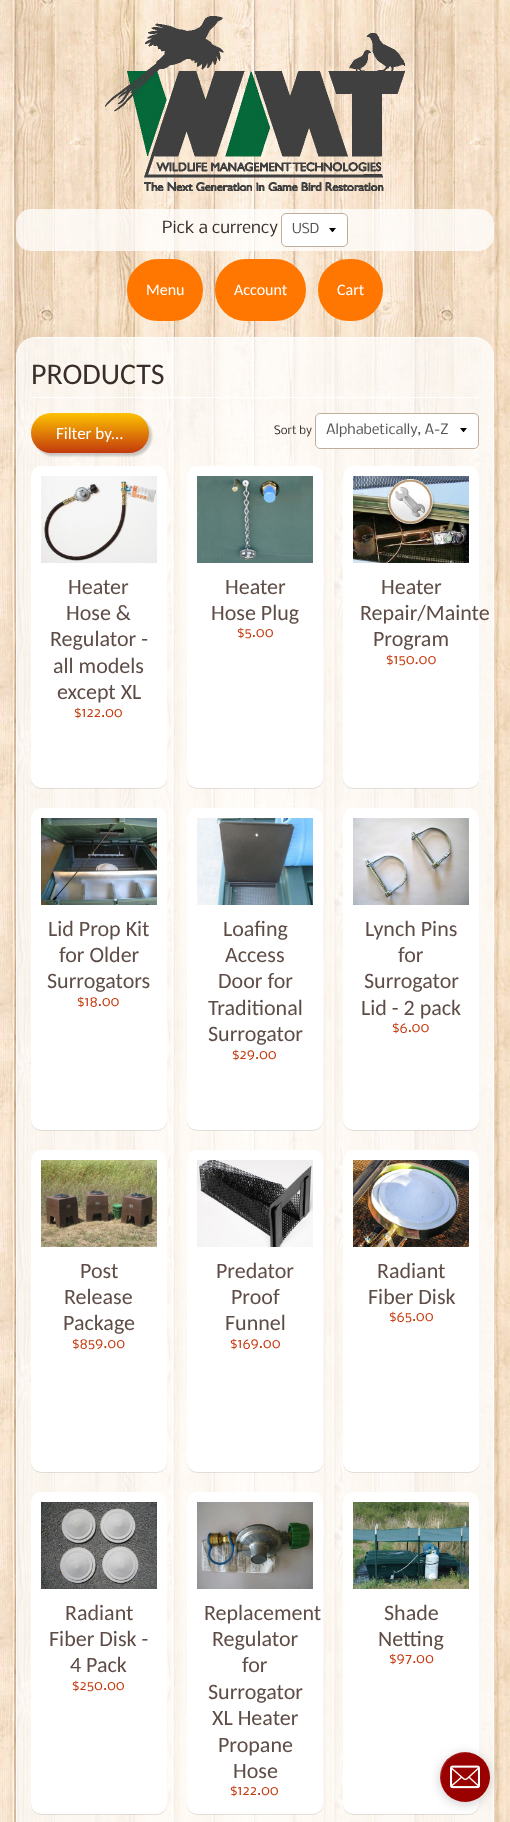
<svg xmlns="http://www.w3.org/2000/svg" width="510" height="1822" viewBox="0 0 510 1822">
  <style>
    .t1 { font: 16px Nobile; fill: #392e2a; }
    .t2 { font: 13px Nobile; fill: #555; }
    .t3 { font: 16px Carlito; fill: #fff; }
    .t4 { font: 30px Carlito; fill: #392e2a; }
    .t5 { font: 17px Carlito; fill: #fff; }
    .t6 { font: 11px Nobile; fill: #392e2a; }
    .t7 { font: 13.5px Nobile; fill: #555; }
    .t8 { font: 22px Carlito; fill: #5e4c46; }
    .t9 { font: 13.5px Nobile; fill: #c33a0e; }
  </style>
  <defs>
    <linearGradient id="g1" gradientUnits="userSpaceOnUse" x1="90" y1="413" x2="90" y2="453"><stop offset="0" stop-color="#fdc200"/><stop offset="1" stop-color="#c33a0e"/></linearGradient>
  </defs>
  <rect width="100%" height="100%" fill="#fff"/>
  <image x="0" y="0" width="510" height="1822" href="images/1.png"/>
  <image x="105" y="16" width="300" height="175" href="images/2.png"/>
  <rect x="16" y="209" width="478" height="42" rx="15" fill="#ffffffbf"/>
  <text x="162" y="233" class="t1">Pick a currency</text>
  <rect x="281" y="213" width="67" height="34" rx="5" fill="#fff"/>
  <path d="M329 228C333.5 233.5 331.5 233.5 336 228Z" fill="#000"/>
  <rect x="281.5" y="213.5" width="66" height="33" rx="4.5" fill="none" stroke="#bdaf9b"/>
  <text x="292" y="233" class="t2">USD</text>
  <rect x="128.5" y="260.5" width="73" height="59" rx="29.5" fill="#f70" stroke="#f70" stroke-width="3"/>
  <text x="146" y="295" class="t3">Menu</text>
  <rect x="216.5" y="260.5" width="88" height="59" rx="29.5" fill="#f70" stroke="#f70" stroke-width="3"/>
  <text x="234" y="295" class="t3">Account</text>
  <rect x="319.5" y="260.5" width="62" height="59" rx="29.5" fill="#f70" stroke="#f70" stroke-width="3"/>
  <text x="337" y="295" class="t3">Cart</text>
  <rect x="16" y="337" width="478" height="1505" rx="20" fill="#ffffffbf"/>
  <rect x="16.5" y="337.5" width="477" height="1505" rx="19.5" fill="none" stroke="#ffffffb3"/>
  <rect x="31" y="397" width="448" height="1" fill="#fff"/>
  <text x="31" y="384" class="t4">PRODUCTS</text>
  <rect x="34" y="416" width="118" height="40" rx="20" fill="#00000033" filter="blur(1px)"/>
  <rect x="31" y="413" width="118" height="40" rx="20" fill="url(#g1)"/>
  <text x="56" y="439" class="t5">Filter by...</text>
  <text x="274" y="434" class="t6">Sort by</text>
  <rect x="315" y="413" width="164" height="36" rx="5" fill="#fff"/>
  <path d="M460 428C464.5 433.5 462.5 433.5 467 428Z" fill="#000"/>
  <rect x="315.5" y="413.5" width="163" height="35" rx="4.5" fill="none" stroke="#bdaf9b"/>
  <text x="326" y="434" class="t7">Alphabetically, A-Z</text>
  <rect x="31" y="467" width="136" height="322" rx="10" fill="#0000001a" filter="blur(0.5px)"/>
  <rect x="31" y="466" width="136" height="322" rx="10" fill="#fff"/>
  <image x="41" y="476" width="116" height="87" href="images/3.png"/>
  <text x="68" y="594" class="t8">Heater</text>
  <text x="66" y="620" class="t8">Hose &amp;</text>
  <text x="50" y="646" class="t8">Regulator -</text>
  <text x="53" y="673" class="t8">all models</text>
  <text x="57" y="699" class="t8">except XL</text>
  <text x="74" y="717" class="t9">$122.00</text>
  <rect x="187" y="467" width="136" height="322" rx="10" fill="#0000001a" filter="blur(0.5px)"/>
  <rect x="187" y="466" width="136" height="322" rx="10" fill="#fff"/>
  <image x="197" y="476" width="116" height="87" href="images/4.png"/>
  <text x="225" y="594" class="t8">Heater</text>
  <text x="211" y="620" class="t8">Hose Plug</text>
  <text x="237" y="637" class="t9">$5.00</text>
  <rect x="343" y="467" width="136" height="322" rx="10" fill="#0000001a" filter="blur(0.5px)"/>
  <rect x="343" y="466" width="136" height="322" rx="10" fill="#fff"/>
  <image x="353" y="476" width="116" height="87" href="images/5.png"/>
  <text x="381" y="594" class="t8">Heater</text>
  <text x="360" y="620" class="t8">Repair/Mainte</text>
  <text x="373" y="646" class="t8">Program</text>
  <text x="386" y="664" class="t9">$150.00</text>
  <rect x="31" y="809" width="136" height="322" rx="10" fill="#0000001a" filter="blur(0.5px)"/>
  <rect x="31" y="808" width="136" height="322" rx="10" fill="#fff"/>
  <image x="41" y="818" width="116" height="87" href="images/6.png"/>
  <text x="48" y="936" class="t8">Lid Prop Kit</text>
  <text x="59" y="962" class="t8">for Older</text>
  <text x="47" y="988" class="t8">Surrogators</text>
  <text x="77" y="1006" class="t9">$18.00</text>
  <rect x="187" y="809" width="136" height="322" rx="10" fill="#0000001a" filter="blur(0.5px)"/>
  <rect x="187" y="808" width="136" height="322" rx="10" fill="#fff"/>
  <image x="197" y="818" width="116" height="87" href="images/7.png"/>
  <text x="223" y="936" class="t8">Loafing</text>
  <text x="225" y="962" class="t8">Access</text>
  <text x="218" y="988" class="t8">Door for</text>
  <text x="208" y="1015" class="t8">Traditional</text>
  <text x="208" y="1041" class="t8">Surrogator</text>
  <text x="232" y="1059" class="t9">$29.00</text>
  <rect x="343" y="809" width="136" height="322" rx="10" fill="#0000001a" filter="blur(0.5px)"/>
  <rect x="343" y="808" width="136" height="322" rx="10" fill="#fff"/>
  <image x="353" y="818" width="116" height="87" href="images/8.png"/>
  <text x="365" y="936" class="t8">Lynch Pins</text>
  <text x="398" y="962" class="t8">for</text>
  <text x="364" y="988" class="t8">Surrogator</text>
  <text x="361" y="1015" class="t8">Lid - 2 pack</text>
  <text x="392" y="1032" class="t9">$6.00</text>
  <rect x="31" y="1151" width="136" height="322" rx="10" fill="#0000001a" filter="blur(0.5px)"/>
  <rect x="31" y="1150" width="136" height="322" rx="10" fill="#fff"/>
  <image x="41" y="1160" width="116" height="87" href="images/9.png"/>
  <text x="80" y="1278" class="t8">Post</text>
  <text x="64" y="1304" class="t8">Release</text>
  <text x="63" y="1330" class="t8">Package</text>
  <text x="72" y="1348" class="t9">$859.00</text>
  <rect x="187" y="1151" width="136" height="322" rx="10" fill="#0000001a" filter="blur(0.5px)"/>
  <rect x="187" y="1150" width="136" height="322" rx="10" fill="#fff"/>
  <image x="197" y="1160" width="116" height="87" href="images/10.png"/>
  <text x="216" y="1278" class="t8">Predator</text>
  <text x="231" y="1304" class="t8">Proof</text>
  <text x="225" y="1330" class="t8">Funnel</text>
  <text x="230" y="1348" class="t9">$169.00</text>
  <rect x="343" y="1151" width="136" height="322" rx="10" fill="#0000001a" filter="blur(0.5px)"/>
  <rect x="343" y="1150" width="136" height="322" rx="10" fill="#fff"/>
  <image x="353" y="1160" width="116" height="87" href="images/11.png"/>
  <text x="377" y="1278" class="t8">Radiant</text>
  <text x="368" y="1304" class="t8">Fiber Disk</text>
  <text x="389" y="1321" class="t9">$65.00</text>
  <rect x="31" y="1493" width="136" height="322" rx="10" fill="#0000001a" filter="blur(0.5px)"/>
  <rect x="31" y="1492" width="136" height="322" rx="10" fill="#fff"/>
  <image x="41" y="1502" width="116" height="87" href="images/12.png"/>
  <text x="65" y="1620" class="t8">Radiant</text>
  <text x="49" y="1646" class="t8">Fiber Disk -</text>
  <text x="70" y="1672" class="t8">4 Pack</text>
  <text x="72" y="1690" class="t9">$250.00</text>
  <rect x="187" y="1493" width="136" height="322" rx="10" fill="#0000001a" filter="blur(0.5px)"/>
  <rect x="187" y="1492" width="136" height="322" rx="10" fill="#fff"/>
  <image x="197" y="1502" width="116" height="87" href="images/13.png"/>
  <text x="204" y="1620" class="t8">Replacement</text>
  <text x="212" y="1646" class="t8">Regulator</text>
  <text x="242" y="1672" class="t8">for</text>
  <text x="208" y="1699" class="t8">Surrogator</text>
  <text x="212" y="1725" class="t8">XL Heater</text>
  <text x="218" y="1752" class="t8">Propane</text>
  <text x="233" y="1778" class="t8">Hose</text>
  <text x="230" y="1795" class="t9">$122.00</text>
  <rect x="343" y="1493" width="136" height="322" rx="10" fill="#0000001a" filter="blur(0.5px)"/>
  <rect x="343" y="1492" width="136" height="322" rx="10" fill="#fff"/>
  <image x="353" y="1502" width="116" height="87" href="images/14.png"/>
  <text x="384" y="1620" class="t8">Shade</text>
  <text x="378" y="1646" class="t8">Netting</text>
  <text x="389" y="1663" class="t9">$97.00</text>
  <rect x="440" y="1754" width="50" height="50" rx="25" fill="#80808066" filter="blur(5.5px)"/>
  <circle cx="465" cy="1777" r="25" fill="#900"/>
  <path d="M466 1753C471 1753 475 1754 479 1756C455 1741 428 1771 445 1793C436 1778 443 1753 466 1753Z" fill="#ffffff26"/>
  <image x="450" y="1765" width="30" height="24" href="images/15.png"/>
</svg>
